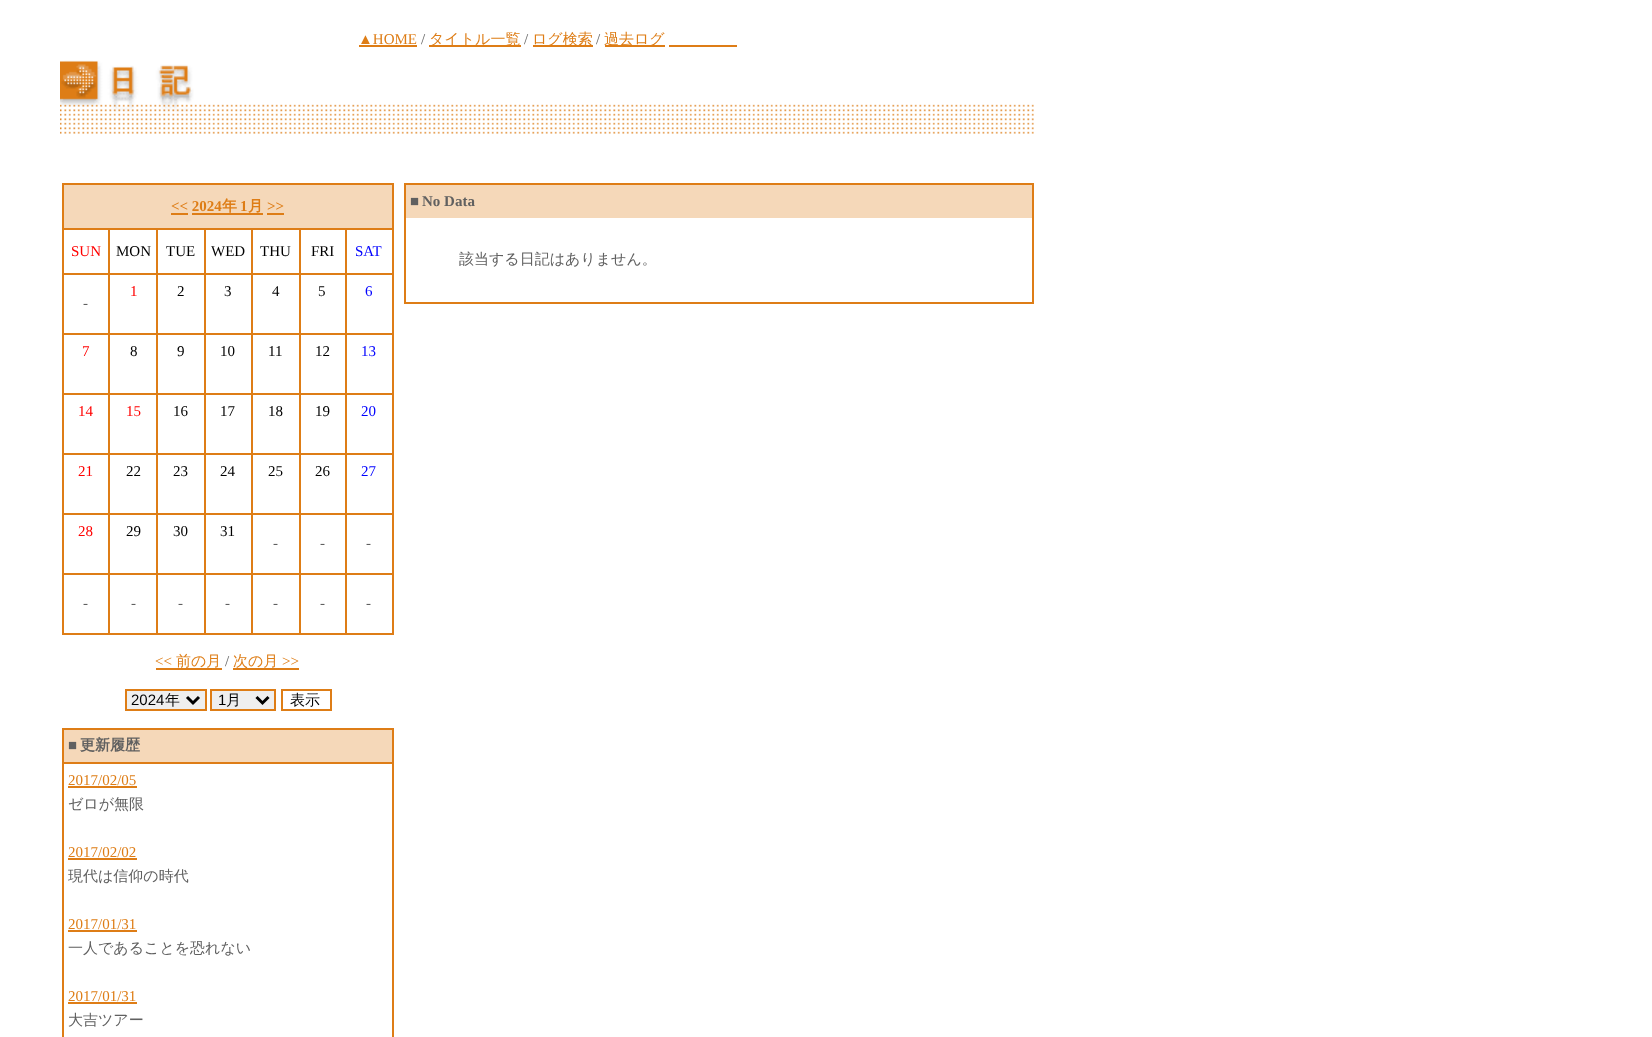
<svg xmlns="http://www.w3.org/2000/svg" width="1652" height="1037" viewBox="0 0 1652 1037">
  <style>
    .t1 { font: 15px Liberation Serif; fill: #de7d16; }
    .t2 { font: 15px Liberation Serif; fill: #606060; }
    .t3 { font: 500 15px WenQuanYi Zen Hei; fill: #de7d16; }
    .t4 { font: bold 15px Liberation Serif; fill: #de7d16; }
    .t5 { font: bold 15px WenQuanYi Zen Hei; fill: #de7d16; }
    .t6 { font: 15px Liberation Serif; fill: #f00; }
    .t7 { font: 15px Liberation Serif; fill: #000; }
    .t8 { font: 15px Liberation Serif; fill: #00f; }
    .t9 { font: 15px Liberation Sans; fill: #000; }
    .t10 { font: 500 15px WenQuanYi Zen Hei; fill: #000; }
    .t11 { font: bold 15px WenQuanYi Zen Hei; fill: #606060; }
    .t12 { font: 500 15px WenQuanYi Zen Hei; fill: #606060; }
    .t13 { font: bold 15px Liberation Serif; fill: #606060; }
  </style>
  <rect width="100%" height="100%" fill="#fff"/>
  <text x="358" y="44" class="t1">▲HOME</text>
  <rect x="359" y="45" width="58" height="2" fill="#de7d16"/>
  <text x="421" y="44" class="t2">/</text>
  <rect x="429" y="45" width="92" height="2" fill="#de7d16"/>
  <text x="429" y="44" class="t3">タイトル一覧</text>
  <text x="524" y="44" class="t2">/</text>
  <rect x="533" y="45" width="60" height="2" fill="#de7d16"/>
  <text x="532" y="44" class="t3">ログ検索</text>
  <text x="596" y="44" class="t2">/</text>
  <rect x="605" y="45" width="60" height="2" fill="#de7d16"/>
  <text x="604" y="44" class="t3">過去ログ</text>
  <rect x="669" y="45" width="68" height="2" fill="#de7d16"/>
  <image x="60" y="60" width="974" height="74" href="images/1.png"/>
  <rect x="62" y="183" width="331" height="2" fill="#de7d16"/>
  <rect x="392" y="183" width="2" height="452" fill="#de7d16"/>
  <rect x="62" y="633" width="331" height="2" fill="#de7d16"/>
  <rect x="62" y="183" width="2" height="452" fill="#de7d16"/>
  <rect x="64" y="185" width="328" height="43" fill="#f5d8b9"/>
  <text x="171" y="211" class="t4">&lt;&lt; 2024</text>
  <rect x="171" y="213" width="17" height="2" fill="#de7d16"/>
  <text x="222" y="211" class="t5">年</text>
  <text x="240" y="211" class="t4">1</text>
  <rect x="192" y="213" width="71" height="2" fill="#de7d16"/>
  <text x="248" y="211" class="t5">月</text>
  <text x="267" y="211" class="t4">&gt;&gt;</text>
  <rect x="267" y="213" width="17" height="2" fill="#de7d16"/>
  <rect x="345" y="228" width="48" height="2" fill="#de7d16"/>
  <rect x="345" y="273" width="48" height="2" fill="#de7d16"/>
  <rect x="345" y="333" width="48" height="2" fill="#de7d16"/>
  <rect x="345" y="393" width="48" height="2" fill="#de7d16"/>
  <rect x="345" y="453" width="48" height="2" fill="#de7d16"/>
  <rect x="345" y="513" width="48" height="2" fill="#de7d16"/>
  <rect x="345" y="573" width="48" height="2" fill="#de7d16"/>
  <rect x="345" y="573" width="2" height="62" fill="#de7d16"/>
  <rect x="299" y="573" width="48" height="2" fill="#de7d16"/>
  <rect x="345" y="513" width="2" height="62" fill="#de7d16"/>
  <rect x="299" y="513" width="48" height="2" fill="#de7d16"/>
  <rect x="345" y="453" width="2" height="62" fill="#de7d16"/>
  <rect x="299" y="453" width="48" height="2" fill="#de7d16"/>
  <rect x="345" y="393" width="2" height="62" fill="#de7d16"/>
  <rect x="299" y="393" width="48" height="2" fill="#de7d16"/>
  <rect x="345" y="333" width="2" height="62" fill="#de7d16"/>
  <rect x="299" y="333" width="48" height="2" fill="#de7d16"/>
  <rect x="345" y="273" width="2" height="62" fill="#de7d16"/>
  <rect x="299" y="273" width="48" height="2" fill="#de7d16"/>
  <rect x="345" y="228" width="2" height="47" fill="#de7d16"/>
  <rect x="299" y="228" width="48" height="2" fill="#de7d16"/>
  <rect x="299" y="573" width="2" height="62" fill="#de7d16"/>
  <rect x="251" y="573" width="49" height="2" fill="#de7d16"/>
  <rect x="299" y="513" width="2" height="62" fill="#de7d16"/>
  <rect x="251" y="513" width="49" height="2" fill="#de7d16"/>
  <rect x="299" y="453" width="2" height="62" fill="#de7d16"/>
  <rect x="251" y="453" width="49" height="2" fill="#de7d16"/>
  <rect x="299" y="393" width="2" height="62" fill="#de7d16"/>
  <rect x="251" y="393" width="49" height="2" fill="#de7d16"/>
  <rect x="299" y="333" width="2" height="62" fill="#de7d16"/>
  <rect x="251" y="333" width="49" height="2" fill="#de7d16"/>
  <rect x="299" y="273" width="2" height="62" fill="#de7d16"/>
  <rect x="251" y="273" width="49" height="2" fill="#de7d16"/>
  <rect x="299" y="228" width="2" height="47" fill="#de7d16"/>
  <rect x="251" y="228" width="49" height="2" fill="#de7d16"/>
  <rect x="251" y="573" width="2" height="62" fill="#de7d16"/>
  <rect x="204" y="573" width="48" height="2" fill="#de7d16"/>
  <rect x="251" y="513" width="2" height="62" fill="#de7d16"/>
  <rect x="204" y="513" width="48" height="2" fill="#de7d16"/>
  <rect x="251" y="453" width="2" height="62" fill="#de7d16"/>
  <rect x="204" y="453" width="48" height="2" fill="#de7d16"/>
  <rect x="251" y="393" width="2" height="62" fill="#de7d16"/>
  <rect x="204" y="393" width="48" height="2" fill="#de7d16"/>
  <rect x="251" y="333" width="2" height="62" fill="#de7d16"/>
  <rect x="204" y="333" width="48" height="2" fill="#de7d16"/>
  <rect x="251" y="273" width="2" height="62" fill="#de7d16"/>
  <rect x="204" y="273" width="48" height="2" fill="#de7d16"/>
  <rect x="251" y="228" width="2" height="47" fill="#de7d16"/>
  <rect x="204" y="228" width="48" height="2" fill="#de7d16"/>
  <rect x="204" y="573" width="2" height="62" fill="#de7d16"/>
  <rect x="156" y="573" width="50" height="2" fill="#de7d16"/>
  <rect x="204" y="513" width="2" height="62" fill="#de7d16"/>
  <rect x="156" y="513" width="50" height="2" fill="#de7d16"/>
  <rect x="204" y="453" width="2" height="62" fill="#de7d16"/>
  <rect x="156" y="453" width="50" height="2" fill="#de7d16"/>
  <rect x="204" y="393" width="2" height="62" fill="#de7d16"/>
  <rect x="156" y="393" width="50" height="2" fill="#de7d16"/>
  <rect x="204" y="333" width="2" height="62" fill="#de7d16"/>
  <rect x="156" y="333" width="50" height="2" fill="#de7d16"/>
  <rect x="204" y="273" width="2" height="62" fill="#de7d16"/>
  <rect x="156" y="273" width="50" height="2" fill="#de7d16"/>
  <rect x="204" y="228" width="2" height="47" fill="#de7d16"/>
  <rect x="156" y="228" width="50" height="2" fill="#de7d16"/>
  <rect x="156" y="573" width="2" height="62" fill="#de7d16"/>
  <rect x="108" y="573" width="50" height="2" fill="#de7d16"/>
  <rect x="156" y="513" width="2" height="62" fill="#de7d16"/>
  <rect x="108" y="513" width="50" height="2" fill="#de7d16"/>
  <rect x="156" y="453" width="2" height="62" fill="#de7d16"/>
  <rect x="108" y="453" width="50" height="2" fill="#de7d16"/>
  <rect x="156" y="393" width="2" height="62" fill="#de7d16"/>
  <rect x="108" y="393" width="50" height="2" fill="#de7d16"/>
  <rect x="156" y="333" width="2" height="62" fill="#de7d16"/>
  <rect x="108" y="333" width="50" height="2" fill="#de7d16"/>
  <rect x="156" y="273" width="2" height="62" fill="#de7d16"/>
  <rect x="108" y="273" width="50" height="2" fill="#de7d16"/>
  <rect x="156" y="228" width="2" height="47" fill="#de7d16"/>
  <rect x="108" y="228" width="50" height="2" fill="#de7d16"/>
  <rect x="108" y="573" width="2" height="62" fill="#de7d16"/>
  <rect x="62" y="573" width="48" height="2" fill="#de7d16"/>
  <rect x="108" y="513" width="2" height="62" fill="#de7d16"/>
  <rect x="62" y="513" width="48" height="2" fill="#de7d16"/>
  <rect x="108" y="453" width="2" height="62" fill="#de7d16"/>
  <rect x="62" y="453" width="48" height="2" fill="#de7d16"/>
  <rect x="108" y="393" width="2" height="62" fill="#de7d16"/>
  <rect x="62" y="393" width="48" height="2" fill="#de7d16"/>
  <rect x="108" y="333" width="2" height="62" fill="#de7d16"/>
  <rect x="62" y="333" width="48" height="2" fill="#de7d16"/>
  <rect x="108" y="273" width="2" height="62" fill="#de7d16"/>
  <rect x="62" y="273" width="48" height="2" fill="#de7d16"/>
  <rect x="108" y="228" width="2" height="47" fill="#de7d16"/>
  <rect x="62" y="228" width="48" height="2" fill="#de7d16"/>
  <text x="71" y="256" class="t6">SUN</text>
  <text x="116" y="256" class="t7">MON</text>
  <text x="166" y="256" class="t7">TUE</text>
  <text x="211" y="256" class="t7">WED</text>
  <text x="260" y="256" class="t7">THU</text>
  <text x="311" y="256" class="t7">FRI</text>
  <text x="355" y="256" class="t8">SAT</text>
  <text x="130" y="296" class="t6">1</text>
  <text x="177" y="296" class="t7">2</text>
  <text x="224" y="296" class="t7">3</text>
  <text x="272" y="296" class="t7">4</text>
  <text x="318" y="296" class="t7">5</text>
  <text x="365" y="296" class="t8">6</text>
  <text x="83" y="308" class="t2">-</text>
  <text x="82" y="356" class="t6">7</text>
  <text x="130" y="356" class="t7">8</text>
  <text x="177" y="356" class="t7">9</text>
  <text x="220" y="356" class="t7">10</text>
  <text x="268" y="356" class="t7">11</text>
  <text x="315" y="356" class="t7">12</text>
  <text x="361" y="356" class="t8">13</text>
  <text x="78" y="416" class="t6">14</text>
  <text x="126" y="416" class="t6">15</text>
  <text x="173" y="416" class="t7">16</text>
  <text x="220" y="416" class="t7">17</text>
  <text x="268" y="416" class="t7">18</text>
  <text x="315" y="416" class="t7">19</text>
  <text x="361" y="416" class="t8">20</text>
  <text x="78" y="476" class="t6">21</text>
  <text x="126" y="476" class="t7">22</text>
  <text x="173" y="476" class="t7">23</text>
  <text x="220" y="476" class="t7">24</text>
  <text x="268" y="476" class="t7">25</text>
  <text x="315" y="476" class="t7">26</text>
  <text x="361" y="476" class="t8">27</text>
  <text x="78" y="536" class="t6">28</text>
  <text x="126" y="536" class="t7">29</text>
  <text x="173" y="536" class="t7">30</text>
  <text x="220" y="536" class="t7">31</text>
  <text x="273" y="548" class="t2">-</text>
  <text x="320" y="548" class="t2">-</text>
  <text x="366" y="548" class="t2">-</text>
  <text x="83" y="608" class="t2">-</text>
  <text x="131" y="608" class="t2">-</text>
  <text x="178" y="608" class="t2">-</text>
  <text x="225" y="608" class="t2">-</text>
  <text x="273" y="608" class="t2">-</text>
  <text x="320" y="608" class="t2">-</text>
  <text x="366" y="608" class="t2">-</text>
  <text x="155" y="666" class="t1">&lt;&lt;</text>
  <rect x="156" y="668" width="66" height="2" fill="#de7d16"/>
  <text x="176" y="666" class="t3">前の月</text>
  <text x="225" y="666" class="t2">/</text>
  <rect x="233" y="668" width="66" height="2" fill="#de7d16"/>
  <text x="233" y="666" class="t3">次の月</text>
  <text x="282" y="666" class="t1">&gt;&gt;</text>
  <rect x="126" y="690" width="80" height="20" fill="#efefef" stroke="#de7d16" stroke-width="2"/>
  <path d="M187 697L193 703L199 697" fill="none" stroke="#000" stroke-width="3"/>
  <text x="131" y="705" class="t9">2024</text>
  <text x="165" y="705" class="t10">年</text>
  <rect x="211" y="690" width="64" height="20" fill="#efefef" stroke="#de7d16" stroke-width="2"/>
  <path d="M256.5 697L262.5 703L268.5 697" fill="none" stroke="#000" stroke-width="3"/>
  <text x="218" y="705" class="t9">1</text>
  <text x="226" y="705" class="t10">月</text>
  <rect x="282" y="690" width="49" height="20" fill="none" stroke="#de7d16" stroke-width="2"/>
  <text x="290" y="705" class="t10">表示</text>
  <rect x="62" y="728" width="331" height="2" fill="#de7d16"/>
  <rect x="392" y="728" width="2" height="309" fill="#de7d16"/>
  <rect x="62" y="728" width="2" height="309" fill="#de7d16"/>
  <rect x="64" y="730" width="328" height="32" fill="#f5d8b9"/>
  <text x="68" y="750" class="t2">■</text>
  <text x="80" y="750" class="t11">更新履歴</text>
  <rect x="62" y="762" width="331" height="2" fill="#de7d16"/>
  <text x="68" y="785" class="t1">2017/02/05</text>
  <rect x="68" y="786" width="69" height="2" fill="#de7d16"/>
  <text x="68" y="809" class="t12">ゼロが無限</text>
  <text x="68" y="857" class="t1">2017/02/02</text>
  <rect x="68" y="858" width="69" height="2" fill="#de7d16"/>
  <text x="68" y="881" class="t12">現代は信仰の時代</text>
  <text x="68" y="929" class="t1">2017/01/31</text>
  <rect x="68" y="930" width="69" height="2" fill="#de7d16"/>
  <text x="68" y="953" class="t12">一人であることを恐れない</text>
  <text x="68" y="1001" class="t1">2017/01/31</text>
  <rect x="68" y="1002" width="69" height="2" fill="#de7d16"/>
  <text x="68" y="1025" class="t12">大吉ツアー</text>
  <rect x="404" y="183" width="630" height="2" fill="#de7d16"/>
  <rect x="1032" y="183" width="2" height="120" fill="#de7d16"/>
  <rect x="404" y="302" width="630" height="2" fill="#de7d16"/>
  <rect x="404" y="183" width="2" height="120" fill="#de7d16"/>
  <rect x="406" y="185" width="626" height="33" fill="#f5d8b9"/>
  <text x="410" y="206" class="t2">■</text>
  <text x="422" y="206" class="t13">No Data</text>
  <text x="459" y="264" class="t12">該当する日記はありません。</text>
</svg>
